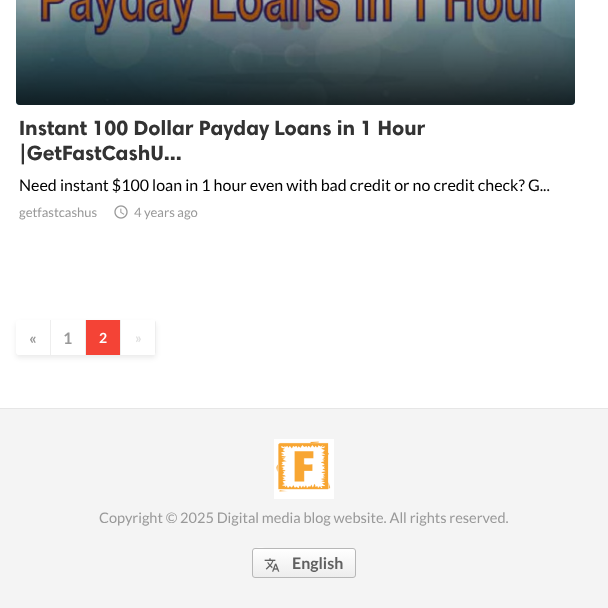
<svg xmlns="http://www.w3.org/2000/svg" width="608" height="608" viewBox="0 0 608 608">
  <style>
    .t1 { font: bold 20.75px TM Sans; fill: #333; }
    .t2 { font: 16px Lato; fill: #000; }
    .t3 { font: 13px Lato; fill: #999; }
    .t4 { font: bold 16px Lato; fill: #999; }
    .t5 { font: bold 14px Lato; fill: #fff; }
    .t6 { font: bold 14px Lato; fill: #e0e0e0; }
    .t7 { font: 14.55px Lato; fill: #999; }
    .t8 { font: bold 16px Lato; fill: #606060; }
  </style>
  <defs>
    <linearGradient id="g1" gradientUnits="userSpaceOnUse" x1="296" y1="-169" x2="296" y2="105"><stop offset="0.45" stop-color="#000" stop-opacity="0"/><stop offset="0.99" stop-color="#000" stop-opacity="0.8"/><stop offset="1" stop-color="#000" stop-opacity="0.8"/></linearGradient>
    <clipPath id="clip1"><path d="M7 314H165V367H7ZM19 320H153C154.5 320 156 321.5 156 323V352C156 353.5 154.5 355 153 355H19C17.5 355 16 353.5 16 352V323C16 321.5 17.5 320 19 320Z" clip-rule="evenodd"/></clipPath>
    <clipPath id="clip2"><rect x="16" y="320" width="140" height="35" rx="3"/></clipPath>
    <clipPath id="clip3"><rect x="252" y="548" width="104" height="30" rx="3"/></clipPath>
    <linearGradient id="g2" gradientUnits="userSpaceOnUse" x1="304" y1="549" x2="304" y2="577"><stop offset="0" stop-color="#fff"/><stop offset="1" stop-color="#ededed"/></linearGradient>
  </defs>
  <rect width="100%" height="100%" fill="#fff"/>
  <image x="16" y="0" width="559" height="105" href="images/1.png"/>
  <rect x="16" y="-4" width="559" height="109" rx="4" fill="url(#g1)"/>
  <text x="19" y="135" class="t1">Instant 100 Dollar Payday Loans in 1 Hour</text>
  <text x="19" y="160" class="t1">|GetFastCashU...</text>
  <text x="19" y="191" class="t2">Need instant $100 loan in 1 hour even with bad credit or no credit check? G...</text>
  <text x="19" y="217" class="t3">getfastcashus</text>
  <image x="114" y="205" width="14" height="14" href="images/2.png"/>
  <text x="134" y="217" class="t3">4 years ago</text>
  <g clip-path="url(#clip1)">
    <rect x="16" y="323" width="140" height="35" rx="3" fill="#00000014" filter="blur(2.5px)"/>
  </g>
  <path d="M19 320H51V355H19C17.5 355 16 353.5 16 352V323C16 321.5 17.5 320 19 320Z" fill="#fff"/>
  <rect x="50" y="320" width="1" height="35" fill="#eee"/>
  <text x="29" y="344" class="t4">«</text>
  <rect x="85" y="320" width="1" height="35" fill="#eee"/>
  <text x="63" y="344" class="t4">1</text>
  <rect x="86" y="320" width="34" height="35" fill="#f44336"/>
  <rect x="120" y="320" width="1" height="35" fill="#eee"/>
  <text x="99" y="343" class="t5">2</text>
  <path d="M121 320H153C154.5 320 156 321.5 156 323V352C156 353.5 154.5 355 153 355H121Z" fill="#fff"/>
  <g clip-path="url(#clip2)">
    <rect x="155" y="320" width="1" height="35" fill="#eee"/>
  </g>
  <text x="135" y="343" class="t6">»</text>
  <rect x="0" y="409" width="608" height="199" fill="#f4f4f4"/>
  <rect x="0" y="408" width="608" height="1" fill="#e6e6e6"/>
  <image x="274" y="439" width="60" height="60" href="images/3.png"/>
  <text x="99" y="523" class="t7">Copyright © 2025 Digital media blog website. All rights reserved.</text>
  <g clip-path="url(#clip3)">
    <rect x="252" y="549" width="104" height="28" fill="url(#g2)"/>
  </g>
  <path d="M255 550H353C354 550 355 551 355 552C355 551 355 549 353 549H271C270 549 253 544 253 552C253 551 254 550 255 550Z" fill="#fff"/>
  <rect x="252.5" y="548.5" width="103" height="29" rx="2.5" fill="none" stroke="#b7b7b7"/>
  <image x="264" y="558" width="16" height="14" href="images/4.png"/>
  <text x="292" y="569" class="t8">English</text>
</svg>
